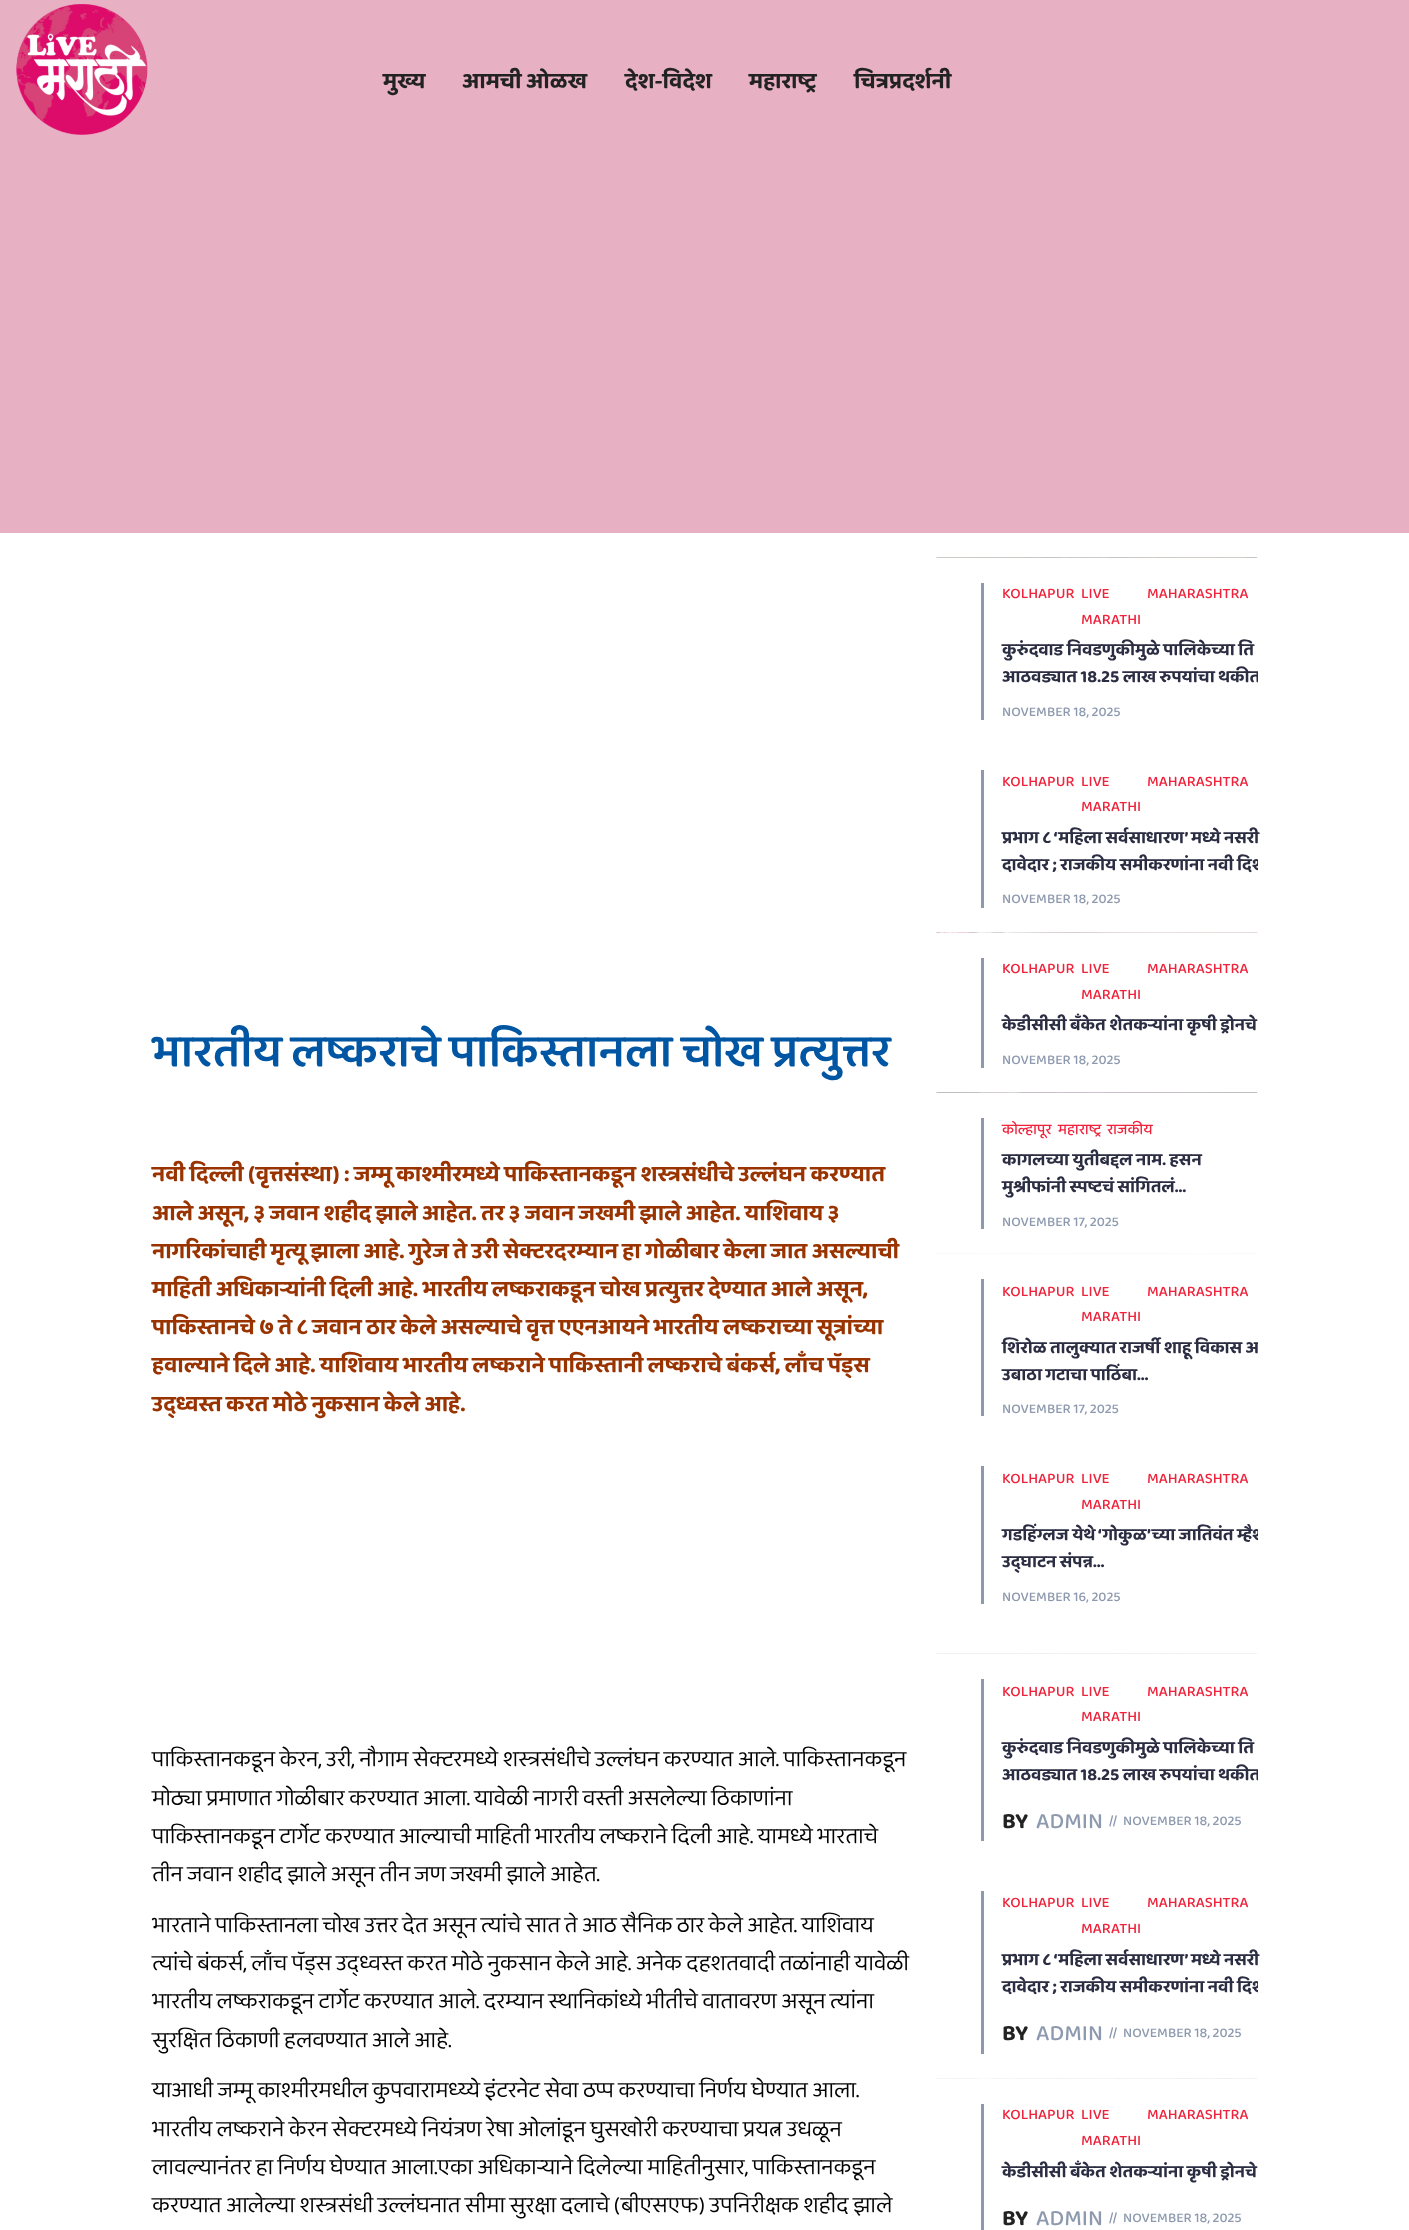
<svg xmlns="http://www.w3.org/2000/svg" width="1409" height="2230" viewBox="0 0 1409 2230">
  <style>
    .t1 { font: bold 22.5px 'Baloo 2'; fill: #222; }
    .t2 { font: 600 46.25px 'Baloo 2'; fill: #0056a3; }
    .t3 { font: bold 22.5px 'Baloo 2'; fill: #930; }
    .t4 { font: 22.5px 'Baloo 2'; fill: #000; }
    .t5 { font: 500 15px 'Baloo 2'; fill: #ef233c; }
    .t6 { font: bold 17.5px 'Baloo 2'; fill: #2b2d42; }
    .t7 { font: 500 13.75px 'Baloo 2'; fill: #8d99ae; }
    .t8 { font: 500 22.5px 'Baloo 2'; fill: #8d99ae; }
  </style>
  <defs>
    <clipPath id="clip1"><rect x="936" y="558" width="322" height="187"/></clipPath>
    <clipPath id="clip2"><rect x="936" y="745" width="322" height="188"/></clipPath>
    <clipPath id="clip3"><rect x="936" y="1254" width="322" height="187"/></clipPath>
    <clipPath id="clip4"><rect x="936" y="1441" width="322" height="188"/></clipPath>
    <clipPath id="clip5"><rect x="936" y="1654" width="322" height="212"/></clipPath>
    <clipPath id="clip6"><rect x="936" y="1866" width="322" height="213"/></clipPath>
  </defs>
  <rect width="100%" height="100%" fill="#fff"/>
  <rect x="0" y="0" width="1409" height="533" fill="#e7b0c3"/>
  <image x="16" y="4" width="132" height="131" href="images/1.png"/>
  <text x="383" y="88" class="t1">मुख्य</text>
  <text x="462" y="88" class="t1">आमची ओळख</text>
  <text x="625" y="88" class="t1">देश-विदेश</text>
  <text x="749" y="88" class="t1">महाराष्ट्र</text>
  <text x="854" y="88" class="t1">चित्रप्रदर्शनी</text>
  <text x="152" y="1066" class="t2">भारतीय लष्कराचे पाकिस्तानला चोख प्रत्युत्तर</text>
  <text x="152" y="1181" class="t3">नवी दिल्ली (वृत्तसंस्था) : जम्मू काश्मीरमध्ये पाकिस्तानकडून शस्त्रसंधीचे उल्लंघन करण्यात</text>
  <text x="152" y="1220" class="t3">आले असून, ३ जवान शहीद झाले आहेत. तर ३ जवान जखमी झाले आहेत. याशिवाय ३</text>
  <text x="152" y="1258" class="t3">नागरिकांचाही मृत्यू झाला आहे. गुरेज ते उरी सेक्टरदरम्यान हा गोळीबार केला जात असल्याची</text>
  <text x="152" y="1296" class="t3">माहिती अधिकाऱ्यांनी दिली आहे. भारतीय लष्कराकडून चोख प्रत्युत्तर देण्यात आले असून,</text>
  <text x="152" y="1334" class="t3">पाकिस्तानचे ७ ते ८ जवान ठार केले असल्याचे वृत्त एएनआयने भारतीय लष्कराच्या सूत्रांच्या</text>
  <text x="152" y="1372" class="t3">हवाल्याने दिले आहे. याशिवाय भारतीय लष्कराने पाकिस्तानी लष्कराचे बंकर्स, लाँच पॅड्स</text>
  <text x="152" y="1411" class="t3">उद्ध्वस्त करत मोठे नुकसान केले आहे.</text>
  <text x="152" y="1766" class="t4">पाकिस्तानकडून केरन, उरी, नौगाम सेक्टरमध्ये शस्त्रसंधीचे उल्लंघन करण्यात आले. पाकिस्तानकडून</text>
  <text x="152" y="1805" class="t4">मोठ्या प्रमाणात गोळीबार करण्यात आला. यावेळी नागरी वस्ती असलेल्या ठिकाणांना</text>
  <text x="152" y="1843" class="t4">पाकिस्तानकडून टार्गेट करण्यात आल्याची माहिती भारतीय लष्कराने दिली आहे. यामध्ये भारताचे</text>
  <text x="152" y="1881" class="t4">तीन जवान शहीद झाले असून तीन जण जखमी झाले आहेत.</text>
  <text x="152" y="1932" class="t4">भारताने पाकिस्तानला चोख उत्तर देत असून त्यांचे सात ते आठ सैनिक ठार केले आहेत. याशिवाय</text>
  <text x="152" y="1970" class="t4">त्यांचे बंकर्स, लाँच पॅड्स उद्ध्वस्त करत मोठे नुकसान केले आहे. अनेक दहशतवादी तळांनाही यावेळी</text>
  <text x="152" y="2008" class="t4">भारतीय लष्कराकडून टार्गेट करण्यात आले. दरम्यान स्थानिकांध्ये भीतीचे वातावरण असून त्यांना</text>
  <text x="152" y="2047" class="t4">सुरक्षित ठिकाणी हलवण्यात आले आहे.</text>
  <text x="152" y="2097" class="t4">याआधी जम्मू काश्मीरमधील कुपवारामध्य्ये इंटरनेट सेवा ठप्प करण्याचा निर्णय घेण्यात आला.</text>
  <text x="152" y="2136" class="t4">भारतीय लष्कराने केरन सेक्टरमध्ये नियंत्रण रेषा ओलांडून घुसखोरी करण्याचा प्रयत्न उधळून</text>
  <text x="152" y="2174" class="t4">लावल्यानंतर हा निर्णय घेण्यात आला.एका अधिकाऱ्याने दिलेल्या माहितीनुसार, पाकिस्तानकडून</text>
  <text x="152" y="2212" class="t4">करण्यात आलेल्या शस्त्रसंधी उल्लंघनात सीमा सुरक्षा दलाचे (बीएसएफ) उपनिरीक्षक शहीद झाले</text>
  <image x="936" y="557" width="322" height="1" href="images/2.png"/>
  <rect x="981" y="583" width="3" height="137" fill="#8d99ae"/>
  <text x="1002" y="598" class="t5">KOLHAPUR</text>
  <text x="1081" y="598" class="t5">LIVE</text>
  <text x="1081" y="624" class="t5">MARATHI</text>
  <text x="1147" y="598" class="t5">MAHARASHTRA</text>
  <text x="1002" y="655" class="t6">कुरुंदवाड निवडणुकीमुळे पालिकेच्या ति</text>
  <g clip-path="url(#clip1)">
    <text x="1002" y="682" class="t6">आठवड्यात 18.25 लाख रुपयांचा थकीत</text>
  </g>
  <text x="1002" y="716" class="t7">NOVEMBER 18, 2025</text>
  <rect x="981" y="770" width="3" height="138" fill="#8d99ae"/>
  <text x="1002" y="786" class="t5">KOLHAPUR</text>
  <text x="1081" y="786" class="t5">LIVE</text>
  <text x="1081" y="811" class="t5">MARATHI</text>
  <text x="1147" y="786" class="t5">MAHARASHTRA</text>
  <text x="1002" y="843" class="t6">प्रभाग ८ ‘महिला सर्वसाधारण’ मध्ये नसरी</text>
  <g clip-path="url(#clip2)">
    <text x="1002" y="870" class="t6">दावेदार ; राजकीय समीकरणांना नवी दिश</text>
  </g>
  <text x="1002" y="903" class="t7">NOVEMBER 18, 2025</text>
  <image x="936" y="932" width="322" height="1" href="images/3.png"/>
  <rect x="981" y="958" width="3" height="110" fill="#8d99ae"/>
  <text x="1002" y="973" class="t5">KOLHAPUR</text>
  <text x="1081" y="973" class="t5">LIVE</text>
  <text x="1081" y="999" class="t5">MARATHI</text>
  <text x="1147" y="973" class="t5">MAHARASHTRA</text>
  <text x="1002" y="1030" class="t6">केडीसीसी बँकेत शेतकऱ्यांना कृषी ड्रोनचे</text>
  <text x="1002" y="1064" class="t7">NOVEMBER 18, 2025</text>
  <image x="936" y="1092" width="322" height="1" href="images/4.png"/>
  <rect x="981" y="1118" width="3" height="111" fill="#8d99ae"/>
  <text x="1002" y="1134" class="t5">कोल्हापूर</text>
  <text x="1058" y="1134" class="t5">महाराष्ट्र</text>
  <text x="1107" y="1134" class="t5">राजकीय</text>
  <text x="1002" y="1165" class="t6">कागलच्या युतीबद्दल नाम. हसन</text>
  <text x="1002" y="1192" class="t6">मुश्रीफांनी स्पष्टचं सांगितलं…</text>
  <text x="1002" y="1226" class="t7">NOVEMBER 17, 2025</text>
  <image x="936" y="1253" width="321" height="1" href="images/5.png"/>
  <rect x="981" y="1279" width="3" height="137" fill="#8d99ae"/>
  <text x="1002" y="1296" class="t5">KOLHAPUR</text>
  <text x="1081" y="1296" class="t5">LIVE</text>
  <text x="1081" y="1321" class="t5">MARATHI</text>
  <text x="1147" y="1296" class="t5">MAHARASHTRA</text>
  <g clip-path="url(#clip3)">
    <text x="1002" y="1353" class="t6">शिरोळ तालुक्यात राजर्षी शाहू विकास आ</text>
  </g>
  <text x="1002" y="1380" class="t6">उबाठा गटाचा पाठिंबा…</text>
  <text x="1002" y="1413" class="t7">NOVEMBER 17, 2025</text>
  <rect x="981" y="1466" width="3" height="138" fill="#8d99ae"/>
  <text x="1002" y="1483" class="t5">KOLHAPUR</text>
  <text x="1081" y="1483" class="t5">LIVE</text>
  <text x="1081" y="1509" class="t5">MARATHI</text>
  <text x="1147" y="1483" class="t5">MAHARASHTRA</text>
  <g clip-path="url(#clip4)">
    <text x="1002" y="1540" class="t6">गडहिंग्लज येथे ‘गोकुळ’च्या जातिवंत म्हैश</text>
  </g>
  <text x="1002" y="1567" class="t6">उद्‌घाटन संपन्न…</text>
  <text x="1002" y="1601" class="t7">NOVEMBER 16, 2025</text>
  <image x="936" y="1653" width="321" height="1" href="images/6.png"/>
  <rect x="981" y="1679" width="3" height="162" fill="#8d99ae"/>
  <text x="1002" y="1696" class="t5">KOLHAPUR</text>
  <text x="1081" y="1696" class="t5">LIVE</text>
  <text x="1081" y="1721" class="t5">MARATHI</text>
  <text x="1147" y="1696" class="t5">MAHARASHTRA</text>
  <text x="1002" y="1753" class="t6">कुरुंदवाड निवडणुकीमुळे पालिकेच्या ति</text>
  <g clip-path="url(#clip5)">
    <text x="1002" y="1780" class="t6">आठवड्यात 18.25 लाख रुपयांचा थकीत</text>
  </g>
  <text x="1002" y="1828" class="t1">BY</text>
  <text x="1036" y="1828" class="t8">ADMIN</text>
  <text x="1109" y="1825" class="t7">//</text>
  <text x="1123" y="1825" class="t7">NOVEMBER 18, 2025</text>
  <rect x="981" y="1891" width="3" height="163" fill="#8d99ae"/>
  <text x="1002" y="1907" class="t5">KOLHAPUR</text>
  <text x="1081" y="1907" class="t5">LIVE</text>
  <text x="1081" y="1933" class="t5">MARATHI</text>
  <text x="1147" y="1907" class="t5">MAHARASHTRA</text>
  <text x="1002" y="1965" class="t6">प्रभाग ८ ‘महिला सर्वसाधारण’ मध्ये नसरी</text>
  <g clip-path="url(#clip6)">
    <text x="1002" y="1992" class="t6">दावेदार ; राजकीय समीकरणांना नवी दिश</text>
  </g>
  <text x="1002" y="2040" class="t1">BY</text>
  <text x="1036" y="2040" class="t8">ADMIN</text>
  <text x="1109" y="2037" class="t7">//</text>
  <text x="1123" y="2037" class="t7">NOVEMBER 18, 2025</text>
  <image x="936" y="2078" width="321" height="1" href="images/7.png"/>
  <rect x="981" y="2104" width="3" height="126" fill="#8d99ae"/>
  <text x="1002" y="2119" class="t5">KOLHAPUR</text>
  <text x="1081" y="2119" class="t5">LIVE</text>
  <text x="1081" y="2145" class="t5">MARATHI</text>
  <text x="1147" y="2119" class="t5">MAHARASHTRA</text>
  <text x="1002" y="2177" class="t6">केडीसीसी बँकेत शेतकऱ्यांना कृषी ड्रोनचे</text>
  <text x="1002" y="2225" class="t1">BY</text>
  <text x="1036" y="2225" class="t8">ADMIN</text>
  <text x="1109" y="2222" class="t7">//</text>
  <text x="1123" y="2222" class="t7">NOVEMBER 18, 2025</text>
</svg>
